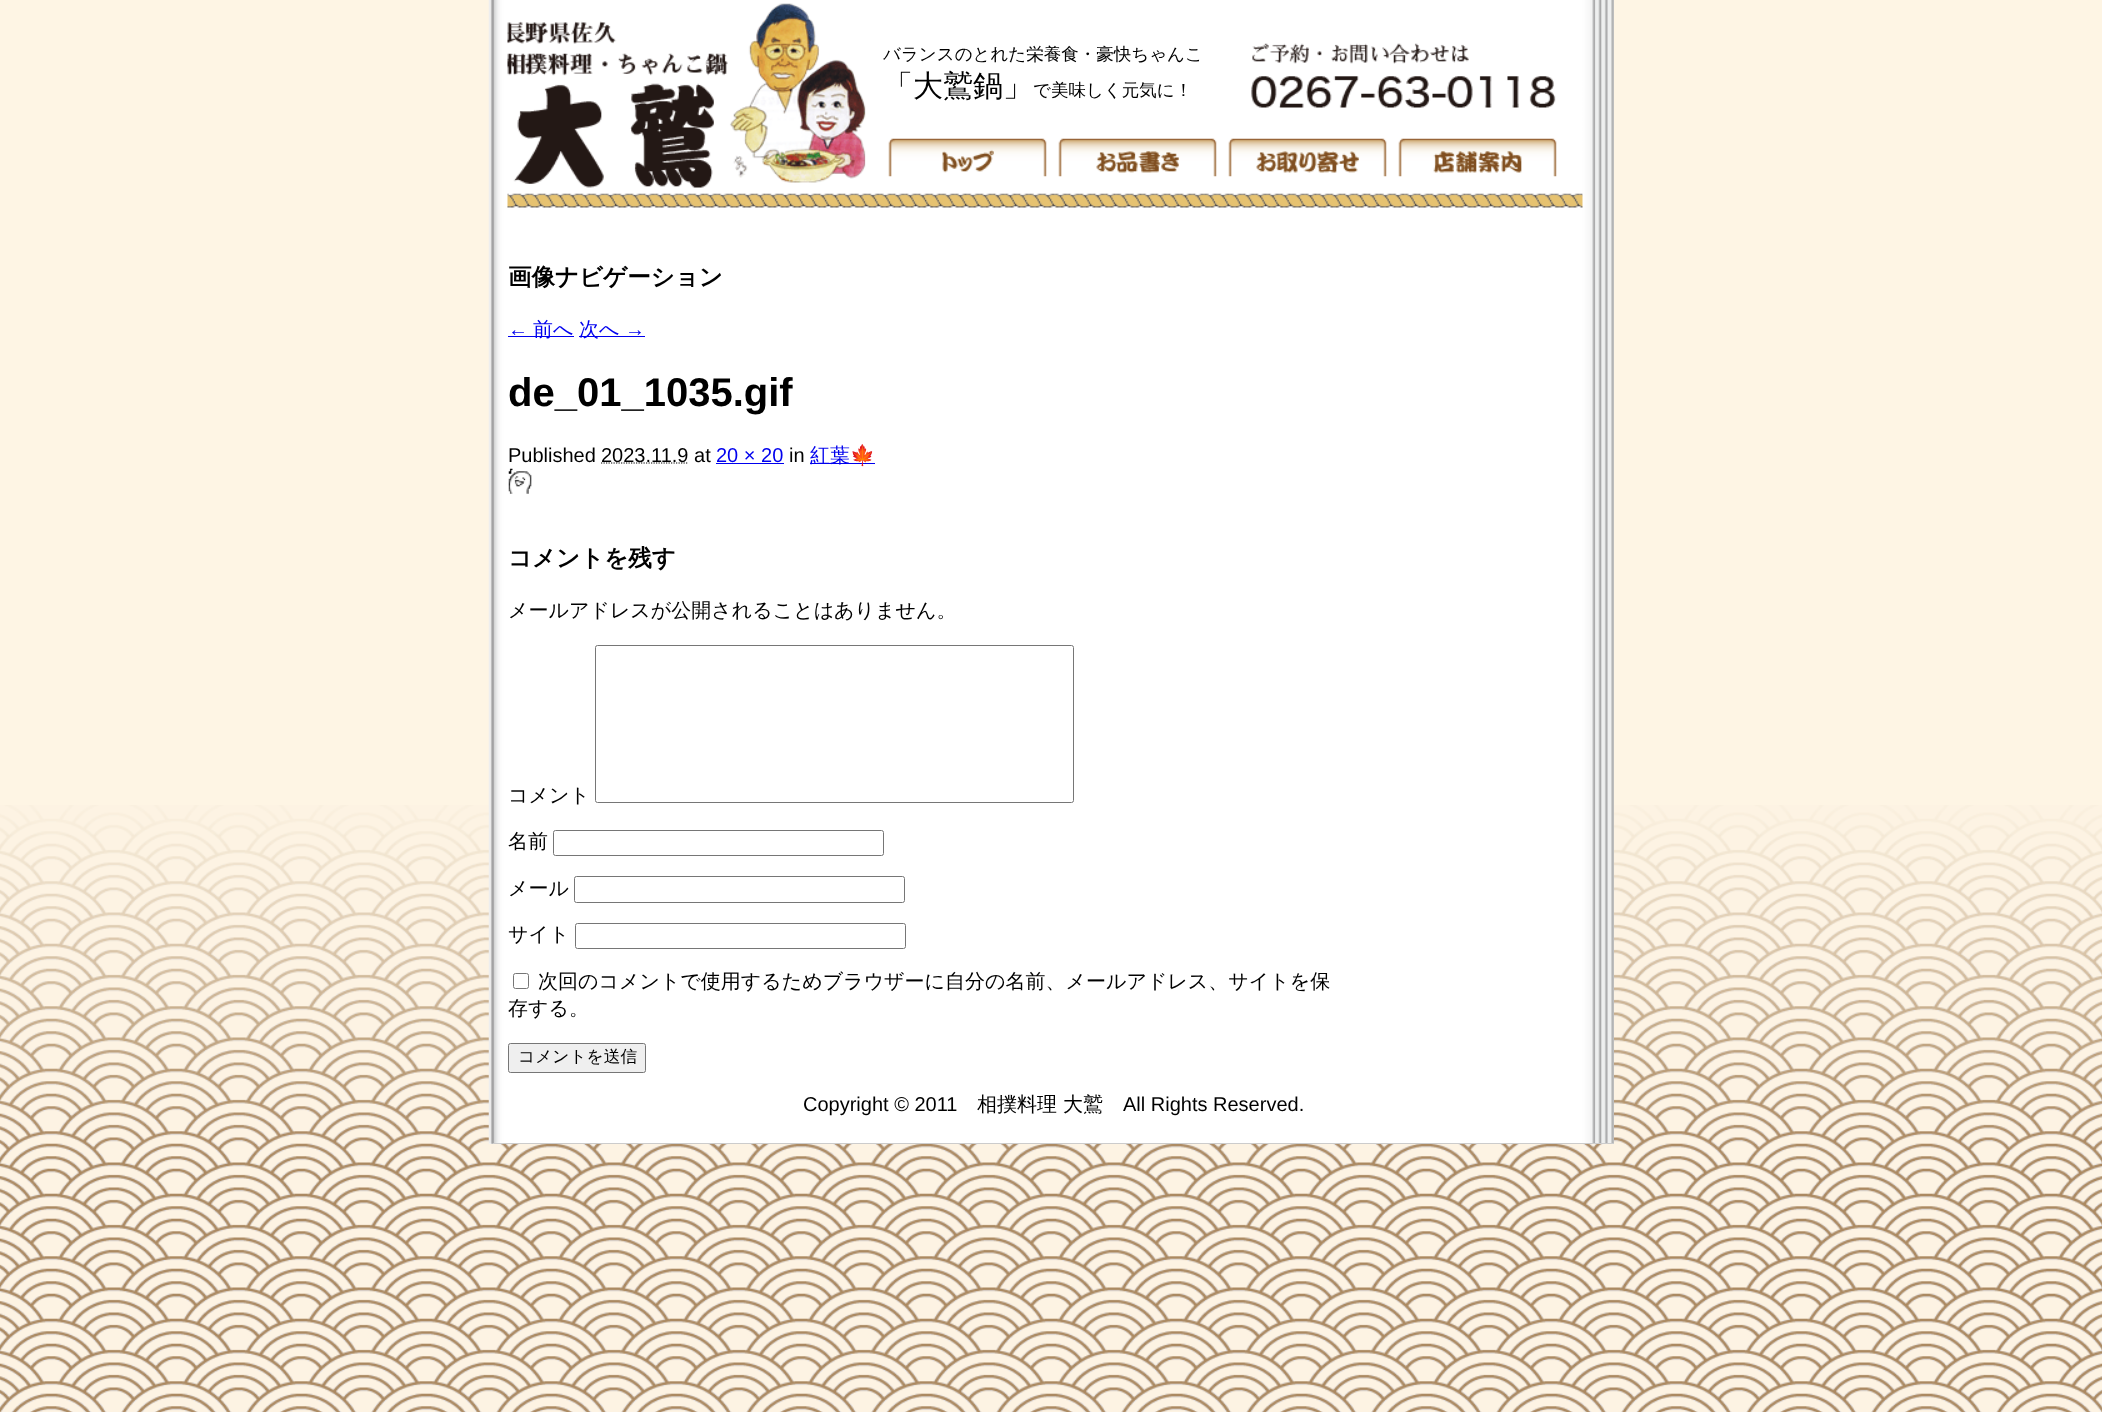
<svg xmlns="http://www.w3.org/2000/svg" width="2102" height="1412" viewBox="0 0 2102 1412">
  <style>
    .t1 { font: 500 17.5px WenQuanYi Zen Hei; fill: #000; }
    .t2 { font: 500 30px WenQuanYi Zen Hei; fill: #000; }
    .t3 { font: bold 23.5px WenQuanYi Zen Hei; fill: #000; }
    .t4 { font: 20px Liberation Sans; fill: #00e; }
    .t5 { font: 500 20px WenQuanYi Zen Hei; fill: #00e; }
    .t6 { font: bold 40px Liberation Sans; fill: #000; }
    .t7 { font: 20px Liberation Sans; fill: #000; }
    .t8 { font: 20px Noto Color Emoji; fill: #00e; }
    .t9 { font: 500 20px WenQuanYi Zen Hei; fill: #000; }
    .t10 { font: 500 16.75px WenQuanYi Zen Hei; fill: #000; }
  </style>
  <rect width="100%" height="100%" fill="#fef5e4"/>
  <image x="0" y="805" width="2102" height="607" href="images/1.png"/>
  <rect x="489" y="0" width="1125" height="1144" fill="#fff"/>
  <image x="488" y="0" width="1126" height="1144" href="images/2.png"/>
  <image x="507" y="193" width="1076" height="15" href="images/3.png"/>
  <image x="507" y="3" width="359" height="185" href="images/4.png"/>
  <text x="883" y="60" class="t1">バランスのとれた栄養食・豪快ちゃんこ</text>
  <text x="883" y="96" class="t2">「大鷲鍋」</text>
  <text x="1033" y="96" class="t1">で美味しく元気に！</text>
  <image x="1251" y="43" width="305" height="65" href="images/5.png"/>
  <image x="888" y="138" width="159" height="39" href="images/6.png"/>
  <image x="1058" y="138" width="159" height="39" href="images/7.png"/>
  <image x="1228" y="138" width="159" height="39" href="images/8.png"/>
  <image x="1398" y="138" width="159" height="39" href="images/9.png"/>
  <text x="508" y="285" class="t3">画像ナビゲーション</text>
  <text x="508" y="336" class="t4">←</text>
  <rect x="508" y="336" width="66" height="1" fill="#00e"/>
  <text x="533" y="336" class="t5">前へ</text>
  <rect x="579" y="336" width="66" height="1" fill="#00e"/>
  <text x="579" y="336" class="t5">次へ</text>
  <text x="625" y="336" class="t4">→</text>
  <text x="508" y="406" class="t6">de_01_1035.gif</text>
  <text x="508" y="462" class="t7">Published</text>
  <path d="M601 463H688.5" fill="none" stroke="#000" stroke-width="1.2" stroke-dasharray="1.25 1.25"/>
  <text x="601" y="462" class="t7">2023.11.9 at</text>
  <text x="716" y="462" class="t4">20 × 20</text>
  <rect x="716" y="463" width="68" height="1" fill="#00e"/>
  <text x="789" y="462" class="t7">in</text>
  <rect x="810" y="463" width="65" height="1" fill="#00e"/>
  <text x="810" y="462" class="t5">紅葉</text>
  <text x="850" y="462" class="t8">🍁</text>
  <image x="508" y="468" width="24" height="26" href="images/10.png"/>
  <text x="508" y="566" class="t3">コメントを残す</text>
  <text x="508" y="617" class="t9">メールアドレスが公開されることはありません。</text>
  <text x="508" y="802" class="t9">コメント</text>
  <rect x="595.5" y="645.5" width="478" height="157" rx="2" fill="none" stroke="#767676"/>
  <text x="508" y="848" class="t9">名前</text>
  <rect x="553.5" y="830.5" width="330" height="25" rx="2" fill="none" stroke="#767676"/>
  <text x="508" y="895" class="t9">メール</text>
  <rect x="574.5" y="876.5" width="330" height="26" rx="2" fill="none" stroke="#767676"/>
  <text x="508" y="941" class="t9">サイト</text>
  <rect x="575.5" y="923.5" width="330" height="25" rx="2" fill="none" stroke="#767676"/>
  <rect x="513.5" y="973.5" width="15" height="15" rx="2" fill="none" stroke="#767676"/>
  <text x="538" y="988" class="t9">次回のコメントで使用するためブラウザーに自分の名前、メールアドレス、サイトを保</text>
  <text x="508" y="1015" class="t9">存する。</text>
  <rect x="508.5" y="1043.5" width="137" height="29" rx="2" fill="#efefef" stroke="#767676"/>
  <text x="518" y="1062" class="t10">コメントを送信</text>
  <rect x="493" y="1143" width="1121" height="1" fill="#ccc"/>
  <text x="803" y="1111" class="t7">Copyright © 2011</text>
  <text x="977" y="1111" class="t9">相撲料理</text>
  <text x="1063" y="1111" class="t9">大鷲</text>
  <text x="1123" y="1111" class="t7">All Rights Reserved.</text>
</svg>
